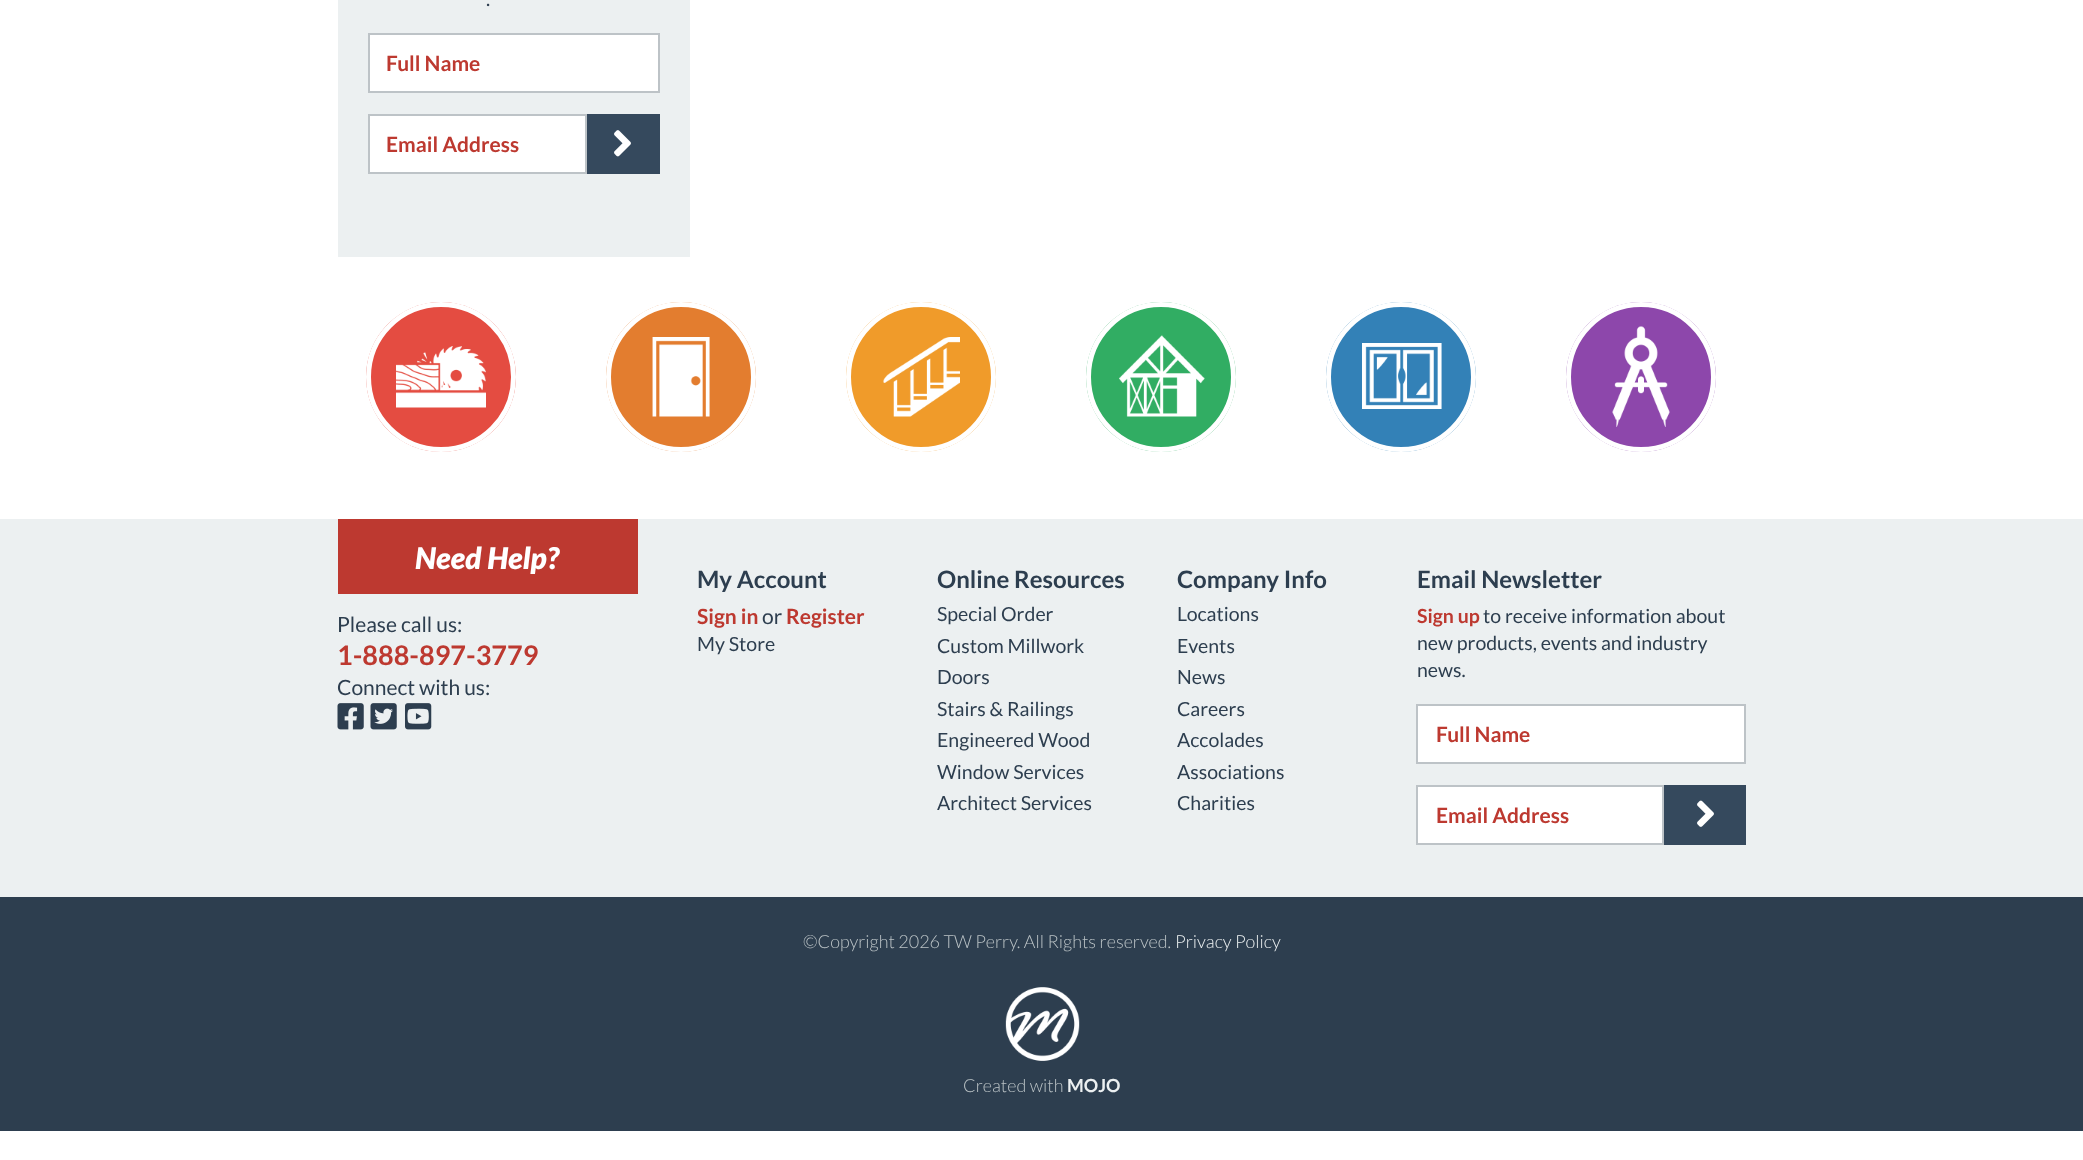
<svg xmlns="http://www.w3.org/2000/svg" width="2083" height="1160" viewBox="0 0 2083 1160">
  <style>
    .t1 { font: 19.5px Lato; fill: #2d3e4f; }
    .t2 { font: bold 21px Lato; fill: #bd3930; }
    .t3 { font: italic 900 30px Lato; fill: #fff; }
    .t4 { font: 21px Lato; fill: #2d3e4f; }
    .t5 { font: bold 27px Lato; fill: #bd3930; }
    .t6 { font: bold 24px Lato; fill: #2d3e4f; }
    .t7 { font: bold 19.5px Lato; fill: #bd3930; }
    .t8 { font: 300 18px Lato; fill: #bbc3c6; }
    .t9 { font: 300 18px Lato; fill: #ecf0f1; }
    .t10 { font: bold 18px Lato; fill: #ecf0f1; }
  </style>
  <rect width="100%" height="100%" fill="#fff"/>
  <rect x="338" y="0" width="352" height="257" fill="#ecf0f1"/>
  <text x="486" y="6" class="t1">.</text>
  <rect x="369" y="34" width="290" height="58" fill="#fff" stroke="#bdc3c7" stroke-width="2"/>
  <text x="386" y="71" class="t2">Full Name</text>
  <rect x="369" y="115" width="217" height="58" fill="#fff" stroke="#bdc3c7" stroke-width="2"/>
  <text x="386" y="152" class="t2">Email Address</text>
  <rect x="587" y="114" width="73" height="60" fill="#35495d"/>
  <image x="614" y="130" width="17" height="27" href="images/1.png"/>
  <circle cx="441" cy="377" r="75" fill="#e44c41"/>
  <image x="396" y="346" width="90" height="62" href="images/2.png"/>
  <circle cx="441" cy="377" r="72.5" fill="none" stroke="#fff" stroke-width="5"/>
  <circle cx="681" cy="377" r="75" fill="#e37d2f"/>
  <image x="652" y="337" width="58" height="80" href="images/3.png"/>
  <circle cx="681" cy="377" r="72.5" fill="none" stroke="#fff" stroke-width="5"/>
  <circle cx="921" cy="377" r="75" fill="#f09b2a"/>
  <image x="883" y="337" width="77" height="80" href="images/4.png"/>
  <circle cx="921" cy="377" r="72.5" fill="none" stroke="#fff" stroke-width="5"/>
  <circle cx="1161" cy="377" r="75" fill="#31ad63"/>
  <image x="1119" y="335" width="86" height="82" href="images/5.png"/>
  <circle cx="1161" cy="377" r="72.5" fill="none" stroke="#fff" stroke-width="5"/>
  <circle cx="1401" cy="377" r="75" fill="#3381b7"/>
  <image x="1362" y="343" width="80" height="66" href="images/6.png"/>
  <circle cx="1401" cy="377" r="72.5" fill="none" stroke="#fff" stroke-width="5"/>
  <circle cx="1641" cy="377" r="75" fill="#8d47ab"/>
  <image x="1612" y="326" width="58" height="101" href="images/7.png"/>
  <circle cx="1641" cy="377" r="72.5" fill="none" stroke="#fff" stroke-width="5"/>
  <rect x="0" y="519" width="2083" height="378" fill="#ecf0f1"/>
  <rect x="338" y="519" width="300" height="75" fill="#bd3930"/>
  <text x="415" y="569" class="t3">Need Help?</text>
  <text x="337" y="632" class="t4">Please call us:</text>
  <text x="337" y="665" class="t5">1-888-897-3779</text>
  <text x="337" y="695" class="t4">Connect with us:</text>
  <image x="337" y="703" width="27" height="27" href="images/8.png"/>
  <image x="370" y="703" width="27" height="27" href="images/9.png"/>
  <image x="405" y="703" width="27" height="27" href="images/10.png"/>
  <text x="697" y="588" class="t6">My Account</text>
  <text x="697" y="624" class="t2">Sign in</text>
  <text x="762" y="624" class="t4">or</text>
  <text x="786" y="624" class="t2">Register</text>
  <text x="697" y="651" class="t1">My Store</text>
  <text x="937" y="588" class="t6">Online Resources</text>
  <text x="937" y="621" class="t1">Special Order</text>
  <text x="937" y="653" class="t1">Custom Millwork</text>
  <text x="937" y="684" class="t1">Doors</text>
  <text x="937" y="716" class="t1">Stairs &amp; Railings</text>
  <text x="937" y="747" class="t1">Engineered Wood</text>
  <text x="937" y="779" class="t1">Window Services</text>
  <text x="937" y="810" class="t1">Architect Services</text>
  <text x="1177" y="588" class="t6">Company Info</text>
  <text x="1177" y="621" class="t1">Locations</text>
  <text x="1177" y="653" class="t1">Events</text>
  <text x="1177" y="684" class="t1">News</text>
  <text x="1177" y="716" class="t1">Careers</text>
  <text x="1177" y="747" class="t1">Accolades</text>
  <text x="1177" y="779" class="t1">Associations</text>
  <text x="1177" y="810" class="t1">Charities</text>
  <text x="1417" y="588" class="t6">Email Newsletter</text>
  <text x="1417" y="623" class="t7">Sign up</text>
  <text x="1483" y="623" class="t1">to receive information about</text>
  <text x="1417" y="650" class="t1">new products, events and industry</text>
  <text x="1417" y="677" class="t1">news.</text>
  <rect x="1417" y="705" width="328" height="58" fill="#fff" stroke="#bdc3c7" stroke-width="2"/>
  <text x="1436" y="742" class="t2">Full Name</text>
  <rect x="1417" y="786" width="246" height="58" fill="#fff" stroke="#bdc3c7" stroke-width="2"/>
  <text x="1436" y="823" class="t2">Email Address</text>
  <rect x="1664" y="785" width="82" height="60" fill="#35495d"/>
  <image x="1697" y="800" width="17" height="27" href="images/11.png"/>
  <rect x="0" y="897" width="2083" height="234" fill="#2d3e4f"/>
  <text x="803" y="948" class="t8">©Copyright 2026 TW Perry. All Rights reserved.</text>
  <text x="1175" y="948" class="t9">Privacy Policy</text>
  <image x="1005" y="987" width="75" height="74" href="images/12.png"/>
  <text x="963" y="1092" class="t8">Created with</text>
  <text x="1067" y="1092" class="t10">MOJO</text>
</svg>
